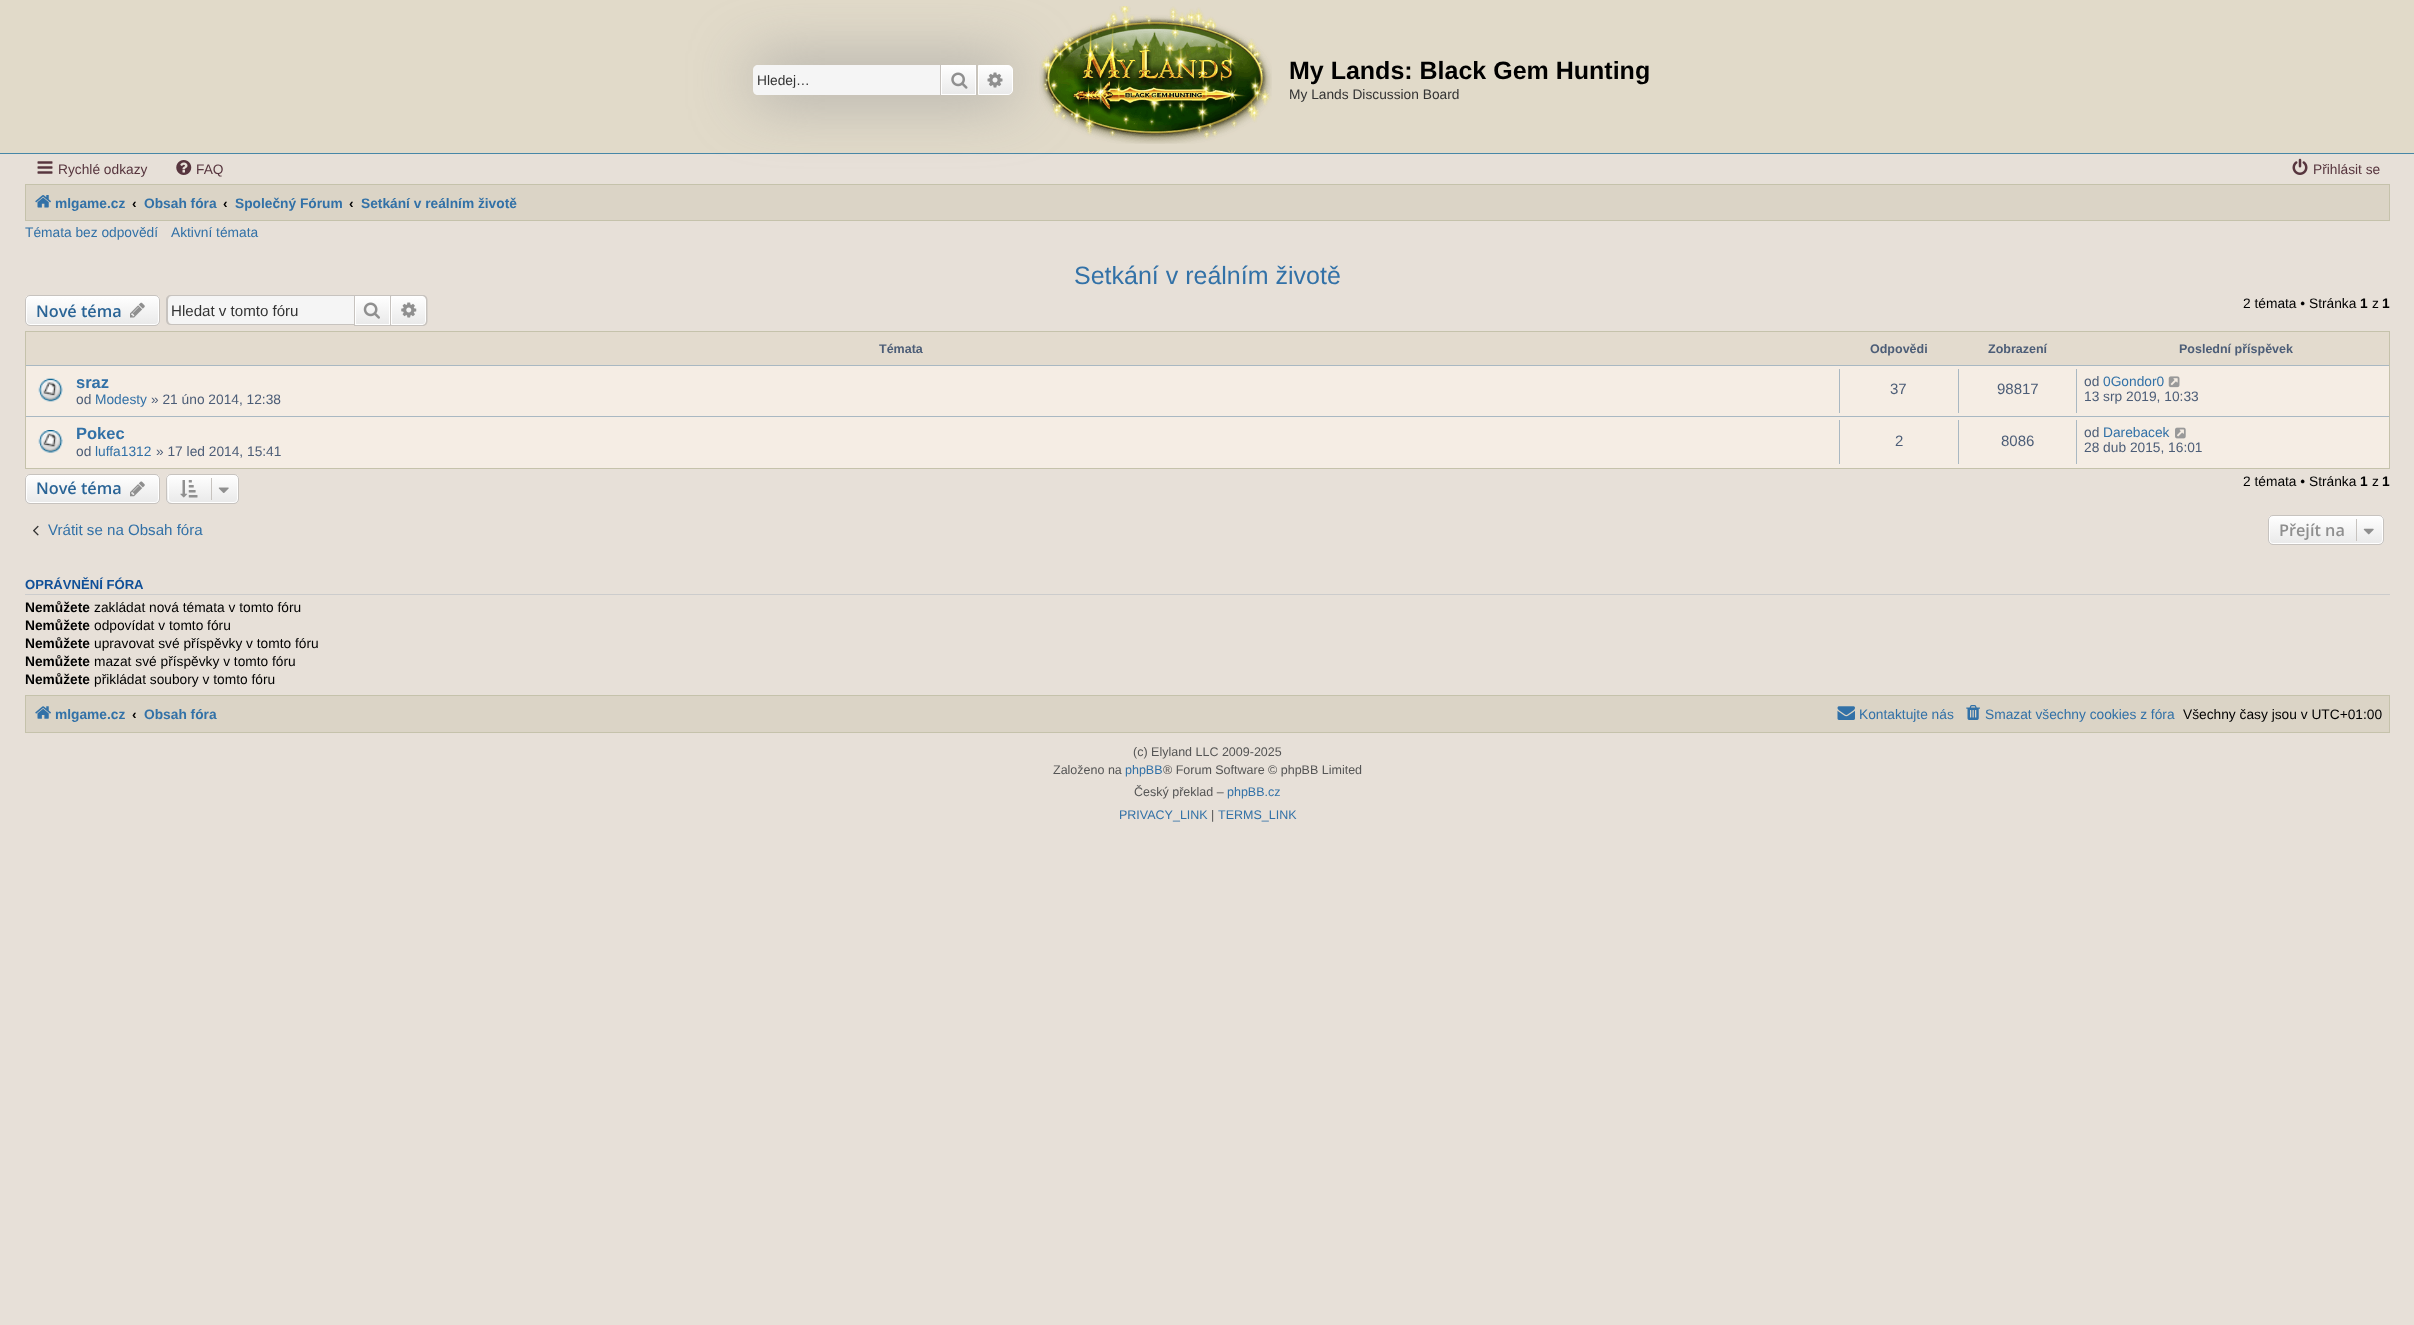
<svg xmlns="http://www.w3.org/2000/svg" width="2414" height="1325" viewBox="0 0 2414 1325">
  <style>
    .t1 { font: 13.75px Liberation Sans; fill: #333; }
    .t2 { font: bold 25px Liberation Sans; fill: #000; }
    .t3 { font: 13.75px Liberation Sans; fill: #57353e; }
    .t4 { font: bold 13.75px Liberation Sans; fill: #3271a7; }
    .t5 { font: bold 13.75px Liberation Sans; fill: #000; }
    .t6 { font: 13.75px Liberation Sans; fill: #3271a7; }
    .t7 { font: 25px Liberation Sans; fill: #3271a7; }
    .t8 { font: 600 16.25px Open Sans; fill: #2a6496; }
    .t9 { font: 15.1px Liberation Sans; fill: #333; }
    .t10 { font: 13.75px Liberation Sans; fill: #000; }
    .t11 { font: bold 12.5px Liberation Sans; fill: #4c5d77; }
    .t12 { font: bold 16.5px Liberation Sans; fill: #3271a7; }
    .t13 { font: 13.75px Liberation Sans; fill: #4c5d77; }
    .t14 { font: 15px Liberation Sans; fill: #4c5d77; }
    .t15 { font: 15.1px Liberation Sans; fill: #3271a7; }
    .t16 { font: 600 16.25px Open Sans; fill: #8f8f8f; }
    .t17 { font: bold 13.1px Liberation Sans; fill: #115098; }
    .t18 { font: 12.5px Liberation Sans; fill: #555; }
    .t19 { font: 12.5px Liberation Sans; fill: #3271a7; }
  </style>
  <defs>
    <linearGradient id="g1" gradientUnits="userSpaceOnUse" x1="959" y1="65" x2="959" y2="95"><stop offset="0" stop-color="#fff"/><stop offset="1" stop-color="#e9e9e9"/></linearGradient>
    <linearGradient id="g2" gradientUnits="userSpaceOnUse" x1="995" y1="65" x2="995" y2="95"><stop offset="0" stop-color="#fff"/><stop offset="1" stop-color="#e9e9e9"/></linearGradient>
    <clipPath id="clip1"><rect x="25" y="295" width="135" height="31" rx="5"/></clipPath>
    <linearGradient id="g3" gradientUnits="userSpaceOnUse" x1="93" y1="296" x2="93" y2="325"><stop offset="0" stop-color="#fff"/><stop offset="1" stop-color="#e9e9e9"/></linearGradient>
    <linearGradient id="g4" gradientUnits="userSpaceOnUse" x1="373" y1="296" x2="373" y2="325"><stop offset="0" stop-color="#fff"/><stop offset="1" stop-color="#e9e9e9"/></linearGradient>
    <linearGradient id="g5" gradientUnits="userSpaceOnUse" x1="409" y1="296" x2="409" y2="325"><stop offset="0" stop-color="#fff"/><stop offset="1" stop-color="#e9e9e9"/></linearGradient>
    <clipPath id="clip2"><rect x="25" y="474" width="135" height="30" rx="5"/></clipPath>
    <linearGradient id="g6" gradientUnits="userSpaceOnUse" x1="93" y1="475" x2="93" y2="503"><stop offset="0" stop-color="#fff"/><stop offset="1" stop-color="#e9e9e9"/></linearGradient>
    <clipPath id="clip3"><rect x="166" y="474" width="73" height="30" rx="5"/></clipPath>
    <linearGradient id="g7" gradientUnits="userSpaceOnUse" x1="203" y1="475" x2="203" y2="503"><stop offset="0" stop-color="#fff"/><stop offset="1" stop-color="#e9e9e9"/></linearGradient>
    <clipPath id="clip4"><rect x="2268" y="515" width="116" height="30" rx="5"/></clipPath>
    <linearGradient id="g8" gradientUnits="userSpaceOnUse" x1="2326" y1="516" x2="2326" y2="544"><stop offset="0" stop-color="#fff"/><stop offset="1" stop-color="#e9e9e9"/></linearGradient>
  </defs>
  <rect width="100%" height="100%" fill="#e7e0d8"/>
  <rect x="0" y="0" width="2414" height="153" fill="#e1dac9"/>
  <rect x="0" y="153" width="2414" height="1" fill="#4787a7"/>
  <image x="1039" y="6" width="233" height="138" href="images/3.png"/>
  <rect x="25.5" y="184.5" width="2364" height="36" fill="#dbd4c6" stroke="#c5c2ab"/>
  <rect x="753" y="65" width="260" height="30" rx="5" fill="#999" filter="blur(31px)"/>
  <path d="M758 65H940V95H758C755 95 753 93 753 90V70C753 67 755 65 758 65Z" fill="#f5f5f5"/>
  <text x="757" y="85" class="t1">Hledej…</text>
  <rect x="942" y="66" width="33" height="28" fill="url(#g1)"/>
  <rect x="941.5" y="65.5" width="34" height="29" fill="none" stroke="#fff"/>
  <rect x="976" y="65" width="1" height="30" fill="#c7c3bf"/>
  <rect x="940" y="65" width="1" height="30" fill="#c7c3bf"/>
  <image x="951" y="72" width="17" height="17" href="images/1.png"/>
  <path d="M978.5 65.5H1008C1010.5 65.5 1012.5 67.5 1012.5 70V90C1012.5 92.5 1010.5 94.5 1008 94.5H978.5Z" fill="url(#g2)" stroke="#fff"/>
  <image x="987" y="72" width="16" height="16" href="images/2.png"/>
  <text x="1289" y="79" class="t2">My Lands: Black Gem Hunting</text>
  <text x="1289" y="99" class="t1">My Lands Discussion Board</text>
  <image x="37" y="161" width="16" height="13" href="images/4.png"/>
  <text x="58" y="174" class="t3">Rychlé odkazy</text>
  <image x="176" y="160" width="16" height="15" href="images/5.png"/>
  <text x="196" y="174" class="t3">FAQ</text>
  <image x="2292" y="158" width="16" height="17" href="images/6.png"/>
  <text x="2313" y="174" class="t3">Přihlásit se</text>
  <image x="35" y="195" width="16" height="13" href="images/7.png"/>
  <text x="55" y="208" class="t4">mlgame.cz</text>
  <text x="132" y="208" class="t5">‹</text>
  <text x="144" y="208" class="t4">Obsah fóra</text>
  <text x="223" y="208" class="t5">‹</text>
  <text x="235" y="208" class="t4">Společný Fórum</text>
  <text x="349" y="208" class="t5">‹</text>
  <text x="361" y="208" class="t4">Setkání v reálním životě</text>
  <text x="25" y="237" class="t6">Témata bez odpovědí</text>
  <text x="171" y="237" class="t6">Aktivní témata</text>
  <text x="1074" y="284" class="t7">Setkání v reálním životě</text>
  <g clip-path="url(#clip1)">
    <rect x="25" y="296" width="135" height="29" fill="url(#g3)"/>
  </g>
  <rect x="26.5" y="296.5" width="132" height="28" rx="3.5" fill="none" stroke="#fff"/>
  <rect x="25.5" y="295.5" width="134" height="30" rx="4.5" fill="none" stroke="#c7c3bf"/>
  <text x="36" y="317" class="t8">Nové téma</text>
  <image x="130" y="302" width="15" height="16" href="images/8.png"/>
  <path d="M172 296H354V324H172C170 324 168 322 168 320V300C168 298 170 296 172 296Z" fill="#f5f5f5"/>
  <path d="M171 295H354V325H171C168 325 166 323 166 320V300C166 297 168 295 171 295ZM171 296H354V324H171C169 324 168 322 168 320V300C168 298 169 296 171 296Z" fill="#c7c3bf" fill-rule="evenodd"/>
  <text x="171" y="316" class="t9">Hledat v tomto fóru</text>
  <rect x="356" y="297" width="33" height="27" fill="url(#g4)"/>
  <rect x="355.5" y="296.5" width="34" height="28" fill="none" stroke="#fff"/>
  <rect x="354.5" y="295.5" width="36" height="30" fill="none" stroke="#c7c3bf"/>
  <image x="363" y="302" width="17" height="17" href="images/9.png"/>
  <path d="M391.5 296.5H422C424 296.5 425.5 298 425.5 300V321C425.5 323 424 324.5 422 324.5H391.5Z" fill="url(#g5)" stroke="#fff"/>
  <path d="M391 295H422.5C425.5 295 427.5 297 427.5 300V321C427.5 324 425.5 326 422.5 326H391ZM391 296H422.5C424.5 296 426 298 426 300V321C426 323.5 424.5 325 422.5 325H391Z" fill="#c7c3bf" fill-rule="evenodd"/>
  <image x="401" y="302" width="16" height="16" href="images/10.png"/>
  <text x="2243" y="308" class="t10">2 témata • Stránka</text>
  <text x="2360" y="308" class="t5">1</text>
  <text x="2372" y="308" class="t10">z</text>
  <text x="2382" y="308" class="t5">1</text>
  <rect x="26" y="332" width="2363" height="33" fill="#e3dbce"/>
  <rect x="25.5" y="331.5" width="2364" height="137" fill="none" stroke="#c5c2ab"/>
  <text x="879" y="353" class="t11">Témata</text>
  <text x="1870" y="353" class="t11">Odpovědi</text>
  <text x="1988" y="353" class="t11">Zobrazení</text>
  <text x="2179" y="353" class="t11">Poslední příspěvek</text>
  <rect x="26" y="366" width="2363" height="50" fill="#f5ede4"/>
  <rect x="26" y="365" width="2363" height="1" fill="#a9b8c2"/>
  <image x="38" y="378" width="25" height="24" href="images/11.png"/>
  <text x="76" y="388" class="t12">sraz</text>
  <text x="76" y="404" class="t13">od</text>
  <text x="95" y="404" class="t6">Modesty</text>
  <text x="151" y="404" class="t13">» 21 úno 2014, 12:38</text>
  <rect x="1839" y="369" width="1" height="44" fill="#a9b8c2"/>
  <text x="1890" y="394" class="t14">37</text>
  <rect x="1958" y="369" width="1" height="44" fill="#a9b8c2"/>
  <text x="1997" y="394" class="t14">98817</text>
  <rect x="2076" y="369" width="1" height="44" fill="#a9b8c2"/>
  <text x="2084" y="386" class="t13">od</text>
  <text x="2103" y="386" class="t6">0Gondor0</text>
  <image x="2168" y="376" width="12" height="12" href="images/12.png"/>
  <text x="2084" y="401" class="t13">13 srp 2019, 10:33</text>
  <rect x="26" y="417" width="2363" height="51" fill="#f5ede4"/>
  <rect x="26" y="416" width="2363" height="1" fill="#a9b8c2"/>
  <image x="38" y="430" width="25" height="23" href="images/13.png"/>
  <text x="76" y="439" class="t12">Pokec</text>
  <text x="76" y="456" class="t13">od</text>
  <text x="95" y="456" class="t6">luffa1312</text>
  <text x="156" y="456" class="t13">» 17 led 2014, 15:41</text>
  <rect x="1839" y="420" width="1" height="44" fill="#a9b8c2"/>
  <text x="1895" y="446" class="t14">2</text>
  <rect x="1958" y="420" width="1" height="44" fill="#a9b8c2"/>
  <text x="2001" y="446" class="t14">8086</text>
  <rect x="2076" y="420" width="1" height="44" fill="#a9b8c2"/>
  <text x="2084" y="437" class="t13">od</text>
  <text x="2103" y="437" class="t6">Darebacek</text>
  <image x="2175" y="427" width="11" height="12" href="images/14.png"/>
  <text x="2084" y="452" class="t13">28 dub 2015, 16:01</text>
  <g clip-path="url(#clip2)">
    <rect x="25" y="475" width="135" height="28" fill="url(#g6)"/>
  </g>
  <rect x="26.5" y="475.5" width="132" height="27" rx="3.5" fill="none" stroke="#fff"/>
  <rect x="25.5" y="474.5" width="134" height="29" rx="4.5" fill="none" stroke="#c7c3bf"/>
  <text x="36" y="494" class="t8">Nové téma</text>
  <image x="130" y="481" width="15" height="16" href="images/15.png"/>
  <g clip-path="url(#clip3)">
    <rect x="166" y="475" width="73" height="28" fill="url(#g7)"/>
  </g>
  <rect x="168.5" y="475.5" width="69" height="27" rx="3.5" fill="none" stroke="#fff"/>
  <rect x="166.5" y="474.5" width="72" height="29" rx="4.5" fill="none" stroke="#c7c3bf"/>
  <image x="180" y="480" width="18" height="18" href="images/16.png"/>
  <rect x="211" y="478" width="1" height="22" fill="#c7c3bf"/>
  <image x="218" y="487" width="11" height="6" href="images/17.png"/>
  <text x="2243" y="486" class="t10">2 témata • Stránka</text>
  <text x="2360" y="486" class="t5">1</text>
  <text x="2372" y="486" class="t10">z</text>
  <text x="2382" y="486" class="t5">1</text>
  <image x="33" y="525" width="6" height="11" href="images/18.png"/>
  <text x="48" y="535" class="t15">Vrátit se na Obsah fóra</text>
  <g clip-path="url(#clip4)">
    <rect x="2268" y="516" width="116" height="28" fill="url(#g8)"/>
  </g>
  <rect x="2269.5" y="516.5" width="113" height="27" rx="3.5" fill="none" stroke="#fff"/>
  <rect x="2268.5" y="515.5" width="115" height="29" rx="4.5" fill="none" stroke="#c7c3bf"/>
  <text x="2279" y="536" class="t16">Přejít na</text>
  <rect x="2356" y="519" width="1" height="22" fill="#c7c3bf"/>
  <image x="2363" y="528" width="11" height="7" href="images/19.png"/>
  <rect x="25" y="594" width="2365" height="1" fill="#ccc"/>
  <text x="25" y="589" class="t17">OPRÁVNĚNÍ FÓRA</text>
  <text x="25" y="612" class="t5">Nemůžete</text>
  <text x="94" y="612" class="t10">zakládat nová témata v tomto fóru</text>
  <text x="25" y="630" class="t5">Nemůžete</text>
  <text x="94" y="630" class="t10">odpovídat v tomto fóru</text>
  <text x="25" y="648" class="t5">Nemůžete</text>
  <text x="94" y="648" class="t10">upravovat své příspěvky v tomto fóru</text>
  <text x="25" y="666" class="t5">Nemůžete</text>
  <text x="94" y="666" class="t10">mazat své příspěvky v tomto fóru</text>
  <text x="25" y="684" class="t5">Nemůžete</text>
  <text x="94" y="684" class="t10">přikládat soubory v tomto fóru</text>
  <rect x="25.5" y="695.5" width="2364" height="37" fill="#dbd4c6" stroke="#c5c2ab"/>
  <image x="35" y="706" width="16" height="13" href="images/20.png"/>
  <text x="55" y="719" class="t4">mlgame.cz</text>
  <text x="132" y="719" class="t5">‹</text>
  <text x="144" y="719" class="t4">Obsah fóra</text>
  <image x="1837" y="706" width="18" height="14" href="images/21.png"/>
  <text x="1859" y="719" class="t6">Kontaktujte nás</text>
  <image x="1966" y="705" width="14" height="15" href="images/22.png"/>
  <text x="1985" y="719" class="t6">Smazat všechny cookies z fóra</text>
  <text x="2183" y="719" class="t10">Všechny časy jsou v UTC+01:00</text>
  <text x="1133" y="756" class="t18">(c) Elyland LLC 2009-2025</text>
  <text x="1053" y="774" class="t18">Založeno na</text>
  <text x="1125" y="774" class="t19">phpBB</text>
  <text x="1163" y="774" class="t18">® Forum Software © phpBB Limited</text>
  <text x="1134" y="796" class="t18">Český překlad –</text>
  <text x="1227" y="796" class="t19">phpBB.cz</text>
  <text x="1119" y="819" class="t19">PRIVACY_LINK</text>
  <text x="1211" y="819" class="t18">|</text>
  <text x="1218" y="819" class="t19">TERMS_LINK</text>
</svg>
